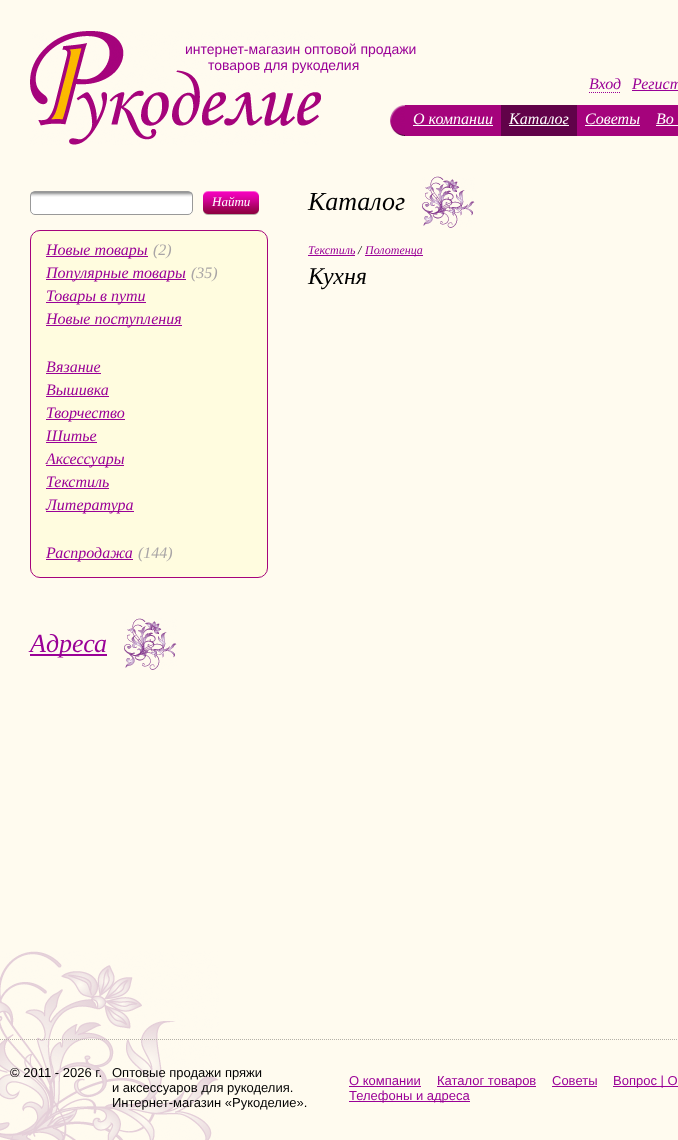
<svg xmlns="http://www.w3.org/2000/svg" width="678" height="1140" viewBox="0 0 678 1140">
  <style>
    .t1 { font: 14px Liberation Sans; fill: #9a0197; }
    .t2 { font: italic 16px Liberation Serif; fill: #9a0197; }
    .t3 { font: italic 16px Liberation Serif; fill: #fff; }
    .t4 { font: italic 13px Liberation Serif; fill: #fff; }
    .t5 { font: italic 16px Liberation Serif; fill: #a9a5a6; }
    .t6 { font: italic 26px Liberation Serif; fill: #9a0197; }
    .t7 { font: italic 26px Liberation Serif; fill: #000; }
    .t8 { font: italic 12px Liberation Serif; fill: #9a0197; }
    .t9 { font: italic 12px Liberation Serif; fill: #000; }
    .t10 { font: italic 24px Liberation Serif; fill: #000; }
    .t11 { font: 13px Liberation Sans; fill: #000; }
    .t12 { font: 13px Liberation Sans; fill: #9a0197; }
  </style>
  <rect width="100%" height="100%" fill="#fffbef"/>
  <image x="0" y="951" width="219" height="189" href="images/1.png"/>
  <image x="30" y="31" width="291" height="114" href="images/2.png"/>
  <text x="185" y="54" class="t1">интернет-магазин оптовой продажи</text>
  <text x="208" y="70" class="t1">товаров для рукоделия</text>
  <path d="M589 92.5H621" fill="none" stroke="#9a0197" stroke-dasharray="1 1"/>
  <text x="589" y="89" class="t2">Вход</text>
  <text x="632" y="89" class="t2">Регист</text>
  <rect x="632" y="90" width="46" height="1" fill="#9a0197"/>
  <image x="390" y="105" width="15" height="31" href="images/3.png"/>
  <rect x="405" y="105" width="273" height="31" fill="#a5037c"/>
  <text x="413" y="124" class="t3">О компании</text>
  <rect x="413" y="125" width="80" height="1" fill="#fff"/>
  <rect x="501" y="105" width="76" height="31" fill="#610249"/>
  <text x="509" y="124" class="t3">Каталог</text>
  <rect x="509" y="125" width="60" height="1" fill="#fff"/>
  <text x="585" y="124" class="t3">Советы</text>
  <rect x="585" y="125" width="55" height="1" fill="#fff"/>
  <text x="656" y="124" class="t3">Во</text>
  <rect x="656" y="125" width="22" height="1" fill="#fff"/>
  <rect x="30" y="191" width="163" height="24" rx="5" fill="#fff"/>
  <image x="30" y="192" width="163" height="5" href="images/4.png"/>
  <rect x="30.5" y="191.5" width="162" height="23" rx="4.5" fill="none" stroke="#999"/>
  <image x="203" y="191" width="5" height="24" href="images/5.png"/>
  <image x="208" y="191" width="46" height="24" href="images/6.png"/>
  <text x="212" y="206" class="t4">Найти</text>
  <image x="254" y="191" width="5" height="24" href="images/7.png"/>
  <rect x="30.5" y="230.5" width="237" height="347" rx="9.5" fill="#fffcdf" stroke="#a6047c"/>
  <rect x="46" y="256" width="102" height="1" fill="#9a0197"/>
  <text x="46" y="255" class="t2">Новые товары</text>
  <text x="153" y="255" class="t5">(2)</text>
  <rect x="46" y="279" width="140" height="1" fill="#9a0197"/>
  <text x="46" y="278" class="t2">Популярные товары</text>
  <text x="191" y="278" class="t5">(35)</text>
  <rect x="46" y="302" width="100" height="1" fill="#9a0197"/>
  <text x="46" y="301" class="t2">Товары в пути</text>
  <rect x="46" y="325" width="136" height="1" fill="#9a0197"/>
  <text x="46" y="324" class="t2">Новые поступления</text>
  <text x="46" y="372" class="t2">Вязание</text>
  <rect x="46" y="373" width="55" height="1" fill="#9a0197"/>
  <text x="46" y="395" class="t2">Вышивка</text>
  <rect x="46" y="396" width="63" height="1" fill="#9a0197"/>
  <rect x="46" y="419" width="79" height="1" fill="#9a0197"/>
  <text x="46" y="418" class="t2">Творчество</text>
  <text x="46" y="441" class="t2">Шитье</text>
  <rect x="46" y="442" width="51" height="1" fill="#9a0197"/>
  <rect x="46" y="465" width="78" height="1" fill="#9a0197"/>
  <text x="46" y="464" class="t2">Аксессуары</text>
  <text x="46" y="487" class="t2">Текстиль</text>
  <rect x="46" y="488" width="63" height="1" fill="#9a0197"/>
  <rect x="46" y="511" width="88" height="1" fill="#9a0197"/>
  <text x="46" y="510" class="t2">Литература</text>
  <rect x="46" y="559" width="87" height="1" fill="#9a0197"/>
  <text x="46" y="558" class="t2">Распродажа</text>
  <text x="138" y="558" class="t5">(144)</text>
  <image x="124" y="618" width="53" height="52" href="images/8.png"/>
  <rect x="30" y="654" width="77" height="2" fill="#9a0197"/>
  <text x="30" y="652" class="t6">Адреса</text>
  <image x="422" y="176" width="53" height="52" href="images/8.png"/>
  <text x="308" y="210" class="t7">Каталог</text>
  <text x="308" y="254" class="t8">Текстиль</text>
  <rect x="308" y="255" width="47" height="1" fill="#9a0197"/>
  <text x="358" y="254" class="t9">/</text>
  <rect x="365" y="255" width="58" height="1" fill="#9a0197"/>
  <text x="365" y="254" class="t8">Полотенца</text>
  <text x="308" y="284" class="t10">Кухня</text>
  <path d="M0 1039.5H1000" fill="none" stroke="#b4b1a8" stroke-dasharray="1 1"/>
  <text x="10" y="1077" class="t11">© 2011 - 2026 г.</text>
  <text x="112" y="1077" class="t11">Оптовые продажи пряжи</text>
  <text x="112" y="1092" class="t11">и аксессуаров для рукоделия.</text>
  <text x="112" y="1107" class="t11">Интернет-магазин «Рукоделие».</text>
  <text x="349" y="1085" class="t12">О компании</text>
  <rect x="349" y="1086" width="72" height="1" fill="#9a0197"/>
  <rect x="437" y="1086" width="99" height="1" fill="#9a0197"/>
  <text x="437" y="1085" class="t12">Каталог товаров</text>
  <text x="552" y="1085" class="t12">Советы</text>
  <rect x="552" y="1086" width="45" height="1" fill="#9a0197"/>
  <rect x="613" y="1086" width="65" height="1" fill="#9a0197"/>
  <text x="613" y="1085" class="t12">Вопрос | О</text>
  <rect x="349" y="1101" width="121" height="1" fill="#9a0197"/>
  <text x="349" y="1100" class="t12">Телефоны и адреса</text>
</svg>
